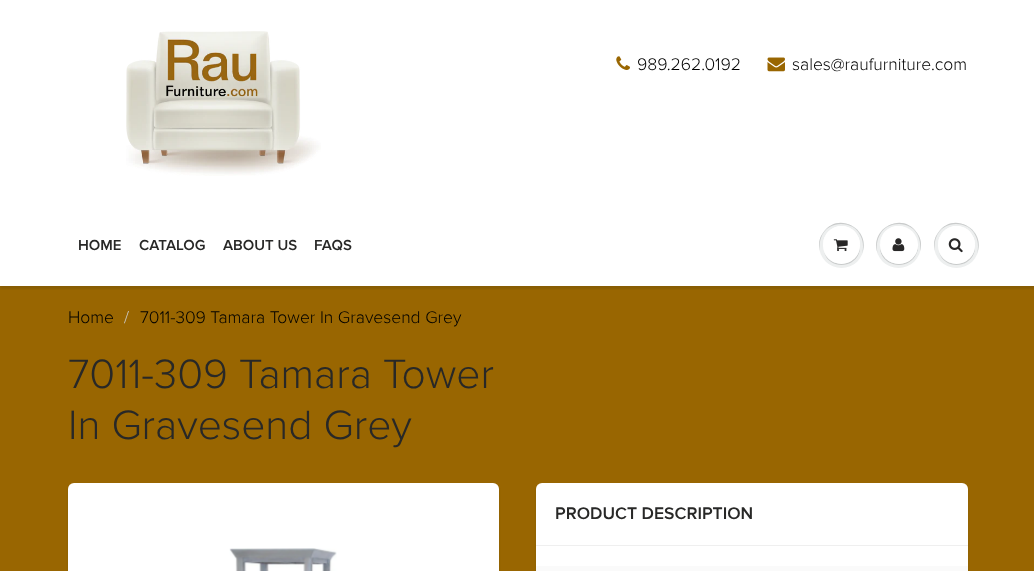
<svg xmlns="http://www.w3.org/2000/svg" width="1034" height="571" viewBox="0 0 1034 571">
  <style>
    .t1 { font: 300 17.5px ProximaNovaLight; fill: #000; }
    .t2 { font: 600 15px ProximaNovaLight; fill: #282827; }
    .t3 { font: 300 17.5px ProximaNovaLight; fill: #ccc; }
    .t4 { font: 300 42.5px ProximaNovaLight; fill: #282827; }
    .t5 { font: 600 17.5px ProximaNovaLight; fill: #282827; }
  </style>
  <defs>
    <clipPath id="clip1"><rect x="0" y="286" width="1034" height="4"/></clipPath>
  </defs>
  <rect width="100%" height="100%" fill="#fff"/>
  <image x="126" y="31" width="195" height="145" href="images/1.png"/>
  <image x="616" y="56" width="14" height="14" href="images/2.png"/>
  <text x="637" y="70" class="t1">989.262.0192</text>
  <image x="767" y="57" width="18" height="15" href="images/3.png"/>
  <text x="792" y="70" class="t1">sales@raufurniture.com</text>
  <rect x="0" y="286" width="1034" height="285" fill="#996601"/>
  <g clip-path="url(#clip1)">
    <rect x="0" y="208" width="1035" height="81" fill="#0b191c1f" filter="blur(1px)"/>
  </g>
  <text x="78" y="250" class="t2">HOME</text>
  <text x="139" y="250" class="t2">CATALOG</text>
  <text x="223" y="250" class="t2">ABOUT US</text>
  <text x="314" y="250" class="t2">FAQS</text>
  <circle cx="841.5" cy="245.5" r="22.5" fill="#edefef"/>
  <path d="M841 224C859 224 866 241 862 254C872 230 838 210 823 233C819 238 818 245 820 251C818 238 825 224 841 224Z" fill="#c9cbcb"/>
  <path d="M824 252C830 272.5 861 267.5 860 246C859 266 831 270.5 824 252Z" fill="#c9cbcb"/>
  <rect x="823" y="226" width="37" height="38" rx="18.5" fill="#fff"/>
  <path d="M841 228C855 228 861 239.5 859.5 250C860.5 246 860 241 858.5 237.5C850.5 218.5 822.5 224.5 823 246C823 237 829 228 841 228Z" fill="#fff"/>
  <image x="833" y="239" width="15" height="13" href="images/4.png"/>
  <circle cx="898.5" cy="245.5" r="22.5" fill="#edefef"/>
  <path d="M899 224C915 224 922 238 920 251C922 245 921 238 917 233C902 210 868 230 878 254C874 241 881 224 899 224Z" fill="#c9cbcb"/>
  <path d="M880 246C879 266.5 908.5 272.5 916.5 253.5C918.5 249.5 918.5 244.5 917 240C922 258 899.5 272 885.5 258.5C882.5 255 880 250.5 880 246Z" fill="#c9cbcb"/>
  <circle cx="899" cy="245" r="19" fill="#fff"/>
  <path d="M899 228C915 228 920 244 915 255C927 235 897 214 883 234C880 239 879 244 880 249C879 239 885 228 899 228Z" fill="#fff"/>
  <image x="892" y="238" width="13" height="14" href="images/5.png"/>
  <circle cx="956.5" cy="245.5" r="22.5" fill="#edefef"/>
  <path d="M956 224C974 224 981 241 977 254C987 230 953 210 938 233C934 238 933 245 935 251C933 238 940 224 956 224Z" fill="#c9cbcb"/>
  <path d="M939 252C945 272.5 976 267.5 975 246C974 266 946 270.5 939 252Z" fill="#c9cbcb"/>
  <rect x="938" y="226" width="37" height="38" rx="18.5" fill="#fff"/>
  <path d="M956 228C970 228 976 239.5 974.5 250C975.5 246 975 241 973.5 237.5C965.5 218.5 937.5 224.5 938 246C938 237 944 228 956 228Z" fill="#fff"/>
  <image x="948" y="238" width="15" height="15" href="images/6.png"/>
  <text x="68" y="323" class="t1">Home</text>
  <text x="124" y="323" class="t3">/</text>
  <text x="140" y="323" class="t1">7011-309 Tamara Tower In Gravesend Grey</text>
  <text x="68" y="388" class="t4">7011-309 Tamara Tower</text>
  <text x="68" y="439" class="t4">In Gravesend Grey</text>
  <rect x="68" y="485" width="431" height="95" rx="6" fill="#0b191c1a" filter="blur(1px)"/>
  <rect x="68" y="483" width="431" height="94" rx="6" fill="#fff"/>
  <image x="229" y="548" width="108" height="23" href="images/7.png"/>
  <rect x="536" y="485" width="432" height="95" rx="6" fill="#0b191c1a" filter="blur(1px)"/>
  <rect x="536" y="483" width="432" height="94" rx="6" fill="#fff"/>
  <rect x="536" y="545" width="432" height="1" fill="#efefef"/>
  <text x="555" y="519" class="t5">PRODUCT DESCRIPTION</text>
  <rect x="536" y="566" width="432" height="5" fill="#fafafa"/>
</svg>
